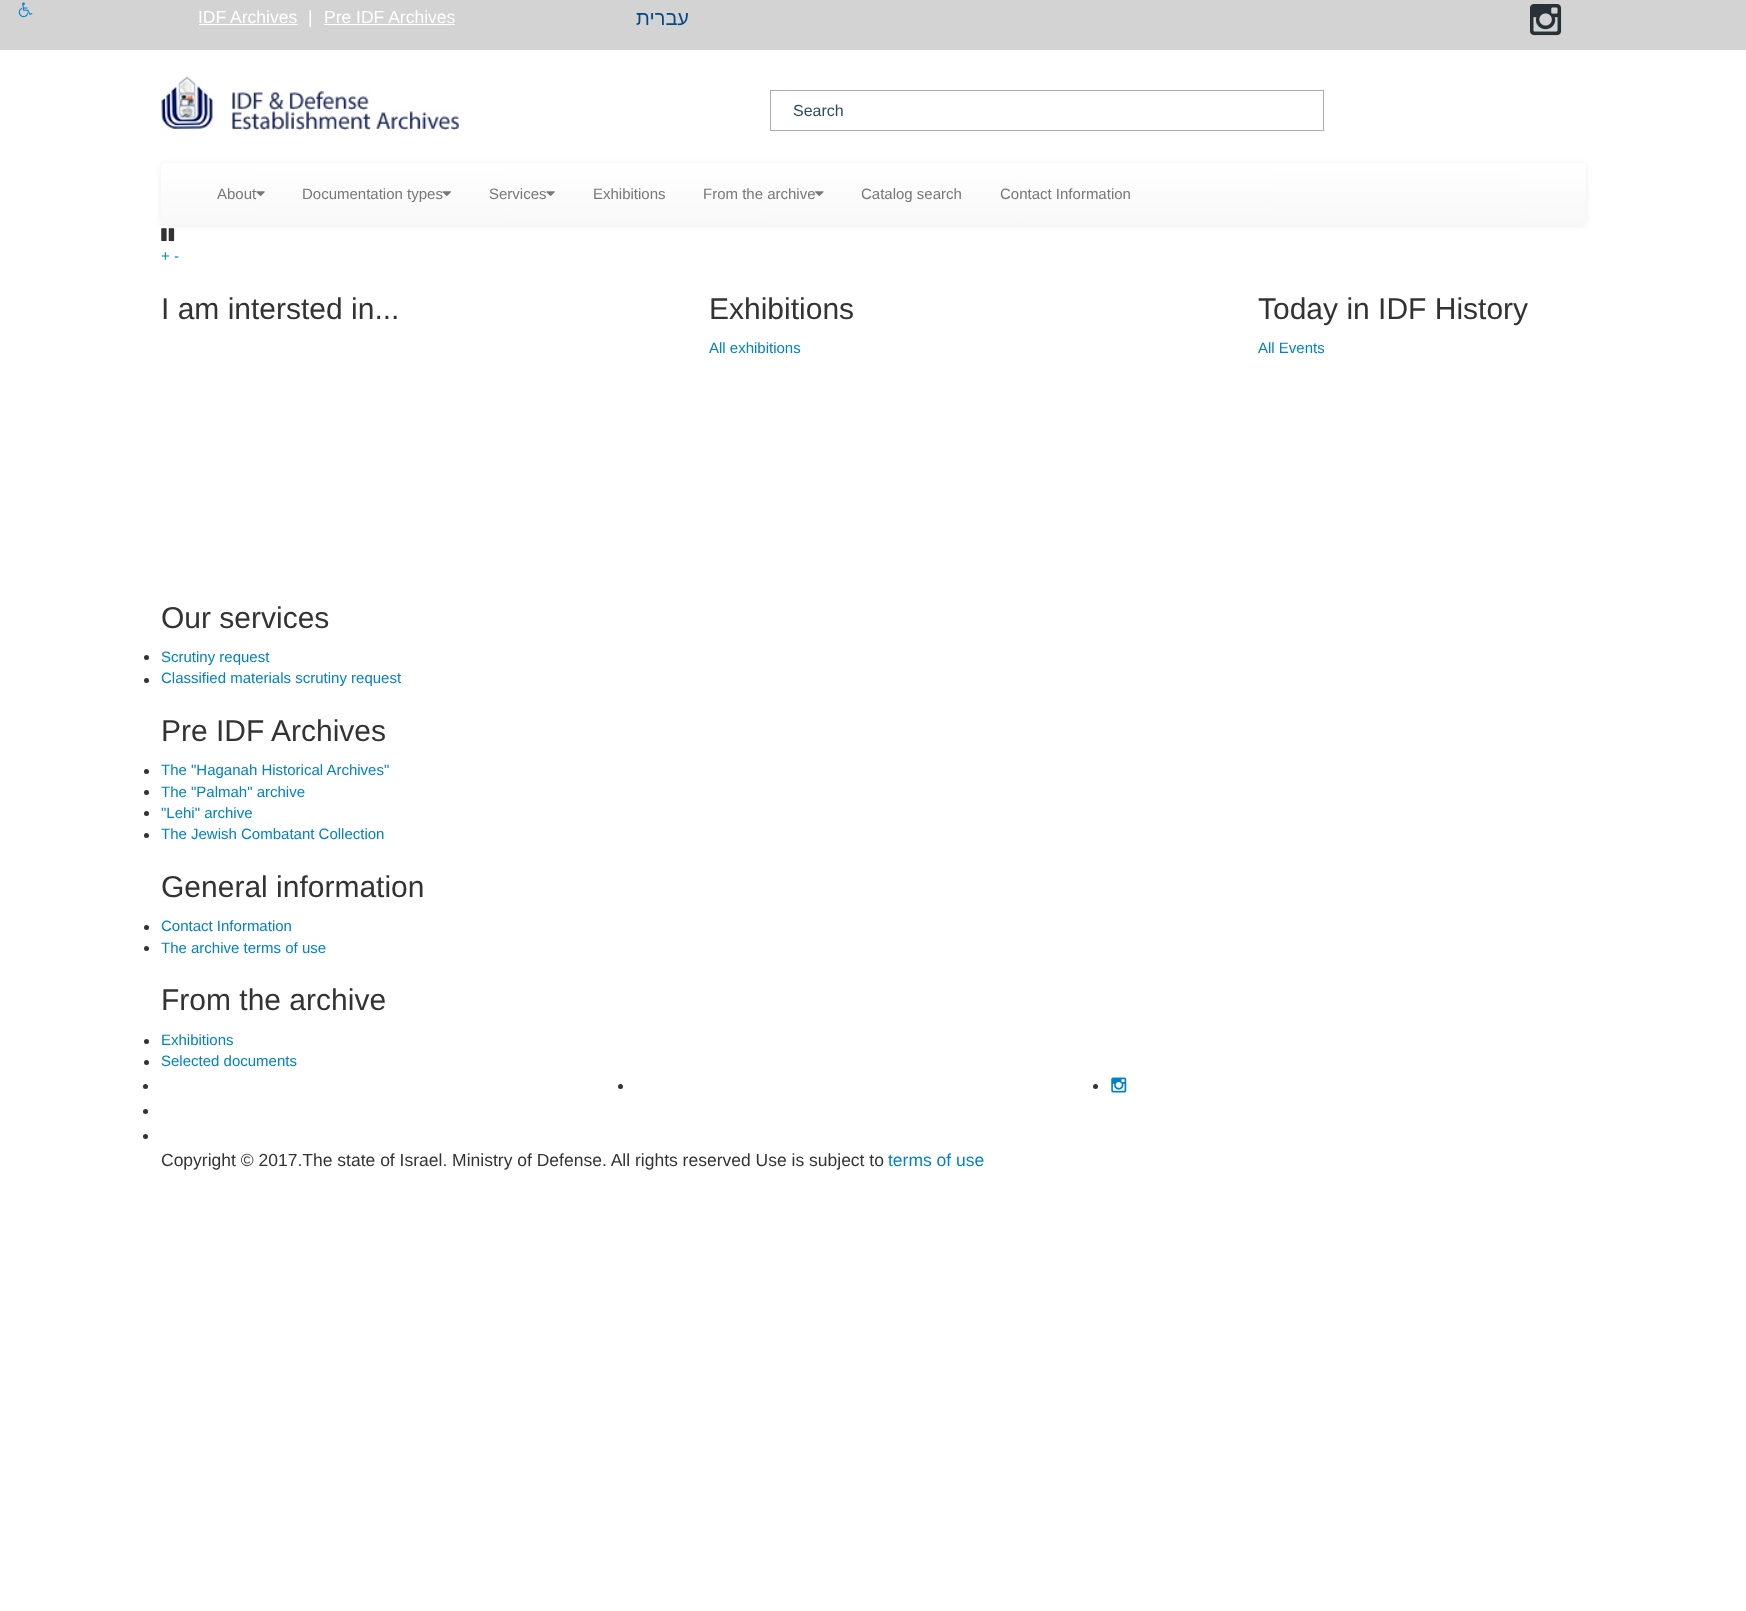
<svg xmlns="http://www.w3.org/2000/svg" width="1746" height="1611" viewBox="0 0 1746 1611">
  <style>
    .t1 { font: 17.5px Liberation Sans; fill: #fff; }
    .t2 { font: 20px Liberation Sans; direction: rtl; fill: #02498a; }
    .t3 { font: 16px Liberation Sans; fill: #2d4c64; }
    .t4 { font: 15px Liberation Sans; fill: #777; }
    .t5 { font: 15px Liberation Sans; fill: #0182c4; }
    .t6 { font: 30px Liberation Sans; fill: #333; }
    .t7 { font: 17.5px Liberation Sans; fill: #333; }
    .t8 { font: 17.5px Liberation Sans; fill: #0182c4; }
  </style>
  <defs>
    <linearGradient id="g1" gradientUnits="userSpaceOnUse" x1="874" y1="162" x2="874" y2="225"><stop offset="0" stop-color="#fff"/><stop offset="1" stop-color="#f8f8f8"/></linearGradient>
  </defs>
  <rect width="100%" height="100%" fill="#fff"/>
  <rect x="0" y="0" width="1746" height="50" fill="#d3d3d3"/>
  <image x="18" y="2" width="15" height="16" href="images/1.png"/>
  <text x="198" y="23" class="t1">IDF Archives</text>
  <rect x="199" y="24" width="99" height="1" fill="#fff"/>
  <text x="308" y="23" class="t1">|</text>
  <text x="324" y="23" class="t1">Pre IDF Archives</text>
  <rect x="324" y="24" width="131" height="1" fill="#fff"/>
  <text x="689" y="25" class="t2">עברית</text>
  <image x="1530" y="4" width="32" height="32" href="images/2.png"/>
  <image x="161" y="76" width="298" height="55" href="images/3.png"/>
  <rect x="770.5" y="90.5" width="553" height="40" fill="none" stroke="#ababab"/>
  <text x="793" y="116" class="t3">Search</text>
  <image x="161" y="228" width="14" height="14" href="images/7.png"/>
  <rect x="161" y="164" width="1425" height="62" rx="5" fill="#00000012" filter="blur(3px)"/>
  <rect x="161" y="163" width="1425" height="62" rx="5" fill="url(#g1)"/>
  <text x="217" y="199" class="t4">About</text>
  <image x="256" y="191" width="9" height="5" href="images/4.png"/>
  <text x="302" y="199" class="t4">Documentation types</text>
  <image x="442" y="191" width="9" height="5" href="images/5.png"/>
  <text x="489" y="199" class="t4">Services</text>
  <image x="546" y="191" width="9" height="5" href="images/4.png"/>
  <text x="593" y="199" class="t4">Exhibitions</text>
  <text x="703" y="199" class="t4">From the archive</text>
  <image x="815" y="191" width="9" height="5" href="images/6.png"/>
  <text x="861" y="199" class="t4">Catalog search</text>
  <text x="1000" y="199" class="t4">Contact Information</text>
  <text x="161" y="261" class="t5">+ -</text>
  <text x="161" y="319" class="t6">I am intersted in...</text>
  <text x="709" y="319" class="t6">Exhibitions</text>
  <text x="709" y="353" class="t5">All exhibitions</text>
  <text x="1258" y="319" class="t6">Today in IDF History</text>
  <text x="1258" y="353" class="t5">All Events</text>
  <text x="161" y="628" class="t6">Our services</text>
  <circle cx="146.5" cy="657.5" r="2.5" fill="#333"/>
  <text x="161" y="662" class="t5">Scrutiny request</text>
  <circle cx="146.5" cy="680.5" r="2.5" fill="#333"/>
  <text x="161" y="683" class="t5">Classified materials scrutiny request</text>
  <text x="161" y="741" class="t6">Pre IDF Archives</text>
  <circle cx="146.5" cy="771.5" r="2.5" fill="#333"/>
  <text x="161" y="775" class="t5">The "Haganah Historical Archives"</text>
  <circle cx="146.5" cy="792.5" r="2.5" fill="#333"/>
  <text x="161" y="797" class="t5">The "Palmah" archive</text>
  <circle cx="146.5" cy="813.5" r="2.5" fill="#333"/>
  <text x="161" y="818" class="t5">"Lehi" archive</text>
  <circle cx="146.5" cy="835.5" r="2.5" fill="#333"/>
  <text x="161" y="839" class="t5">The Jewish Combatant Collection</text>
  <text x="161" y="897" class="t6">General information</text>
  <circle cx="146.5" cy="927.5" r="2.5" fill="#333"/>
  <text x="161" y="931" class="t5">Contact Information</text>
  <circle cx="146.5" cy="948.5" r="2.5" fill="#333"/>
  <text x="161" y="953" class="t5">The archive terms of use</text>
  <text x="161" y="1010" class="t6">From the archive</text>
  <circle cx="146.5" cy="1041.5" r="2.5" fill="#333"/>
  <text x="161" y="1045" class="t5">Exhibitions</text>
  <circle cx="146.5" cy="1062.5" r="2.5" fill="#333"/>
  <text x="161" y="1066" class="t5">Selected documents</text>
  <circle cx="145.5" cy="1086.5" r="2.5" fill="#333"/>
  <circle cx="620.5" cy="1086.5" r="2.5" fill="#333"/>
  <circle cx="1095.5" cy="1086.5" r="2.5" fill="#333"/>
  <image x="1111" y="1077" width="16" height="16" href="images/8.png"/>
  <circle cx="145.5" cy="1111.5" r="2.5" fill="#333"/>
  <circle cx="145.5" cy="1136.5" r="2.5" fill="#333"/>
  <text x="161" y="1166" class="t7">Copyright © 2017.The state of Israel. Ministry of Defense. All rights reserved Use is subject to</text>
  <text x="888" y="1166" class="t8">terms of use</text>
</svg>
